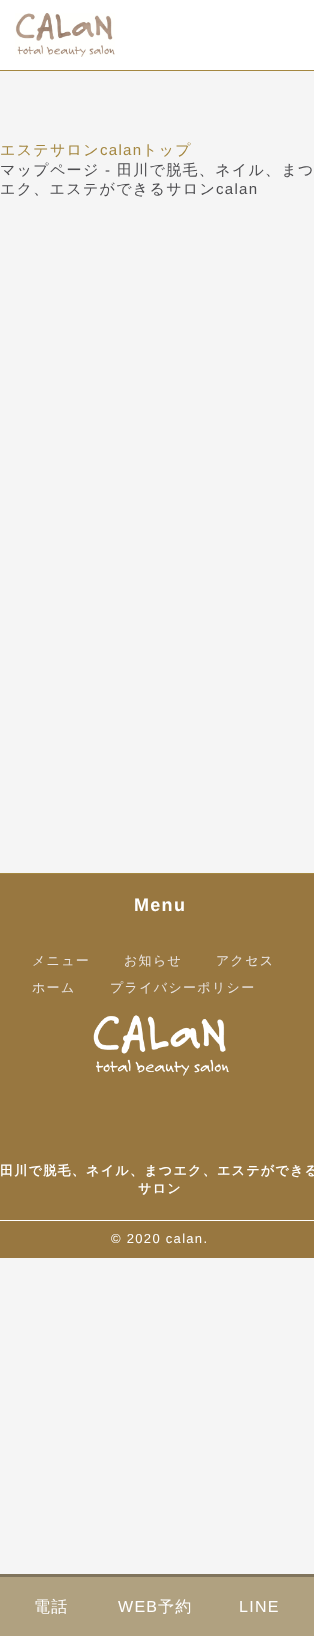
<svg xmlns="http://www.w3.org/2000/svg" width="314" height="1636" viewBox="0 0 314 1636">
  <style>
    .t1 { font: 500 15px WenQuanYi Zen Hei; letter-spacing: 1.3px; fill: #a48740; }
    .t2 { font: 15px Liberation Sans; letter-spacing: 1.3px; fill: #a48740; }
    .t3 { font: 500 15px WenQuanYi Zen Hei; letter-spacing: 1.3px; fill: #4d4d50; }
    .t4 { font: 15px Liberation Sans; letter-spacing: 1.3px; fill: #4d4d50; }
    .t5 { font: bold 18px Liberation Sans; letter-spacing: 1.3px; fill: #fff; }
    .t6 { font: 500 13px WenQuanYi Zen Hei; letter-spacing: 1.3px; fill: #e9e4e2; }
    .t7 { font: 13px Liberation Sans; letter-spacing: 1.3px; fill: #fff; }
    .t8 { font: bold 13px WenQuanYi Zen Hei; letter-spacing: 1.3px; fill: #fff; }
    .t9 { font: 500 16px WenQuanYi Zen Hei; letter-spacing: 1.3px; fill: #fff; }
    .t10 { font: 16px Liberation Sans; letter-spacing: 1.3px; fill: #fff; }
  </style>
  <rect width="100%" height="100%" fill="#f5f5f5"/>
  <rect x="0" y="0" width="314" height="70" fill="#fff"/>
  <rect x="0" y="70" width="314" height="1" fill="#a48740"/>
  <image x="15" y="13" width="100" height="44" href="images/1.png"/>
  <text x="0" y="155" class="t1">エステサロン</text>
  <text x="100" y="155" class="t2">calan</text>
  <text x="142" y="155" class="t1">トップ</text>
  <text x="0" y="175" class="t3">マップページ</text>
  <text x="105" y="175" class="t4">-</text>
  <text x="117" y="175" class="t3">田川で脱毛、ネイル、まつ</text>
  <text x="0" y="194" class="t3">エク、エステができるサロン</text>
  <text x="216" y="194" class="t4">calan</text>
  <rect x="0" y="874" width="314" height="384" fill="#987740"/>
  <rect x="0" y="873" width="314" height="1" fill="#a48740"/>
  <text x="134" y="911" class="t5">Menu</text>
  <text x="32" y="965" class="t6">メニュー</text>
  <text x="124" y="965" class="t6">お知らせ</text>
  <text x="216" y="965" class="t6">アクセス</text>
  <text x="32" y="992" class="t6">ホーム</text>
  <text x="110" y="992" class="t6">プライバシーポリシー</text>
  <image x="93" y="1015" width="136" height="61" href="images/2.png"/>
  <rect x="0" y="1220" width="314" height="1" fill="#fff"/>
  <text x="111" y="1243" class="t7">© 2020 calan.</text>
  <text x="0" y="1175" class="t8">田川で脱毛、ネイル、まつエク、エステができる</text>
  <text x="138" y="1193" class="t8">サロン</text>
  <rect x="0" y="1577" width="314" height="59" fill="#b0a180"/>
  <rect x="0" y="1574" width="314" height="3" fill="#80745c"/>
  <text x="34" y="1612" class="t9">電話</text>
  <text x="118" y="1612" class="t10">WEB</text>
  <text x="158" y="1612" class="t9">予約</text>
  <text x="239" y="1612" class="t10">LINE</text>
</svg>
